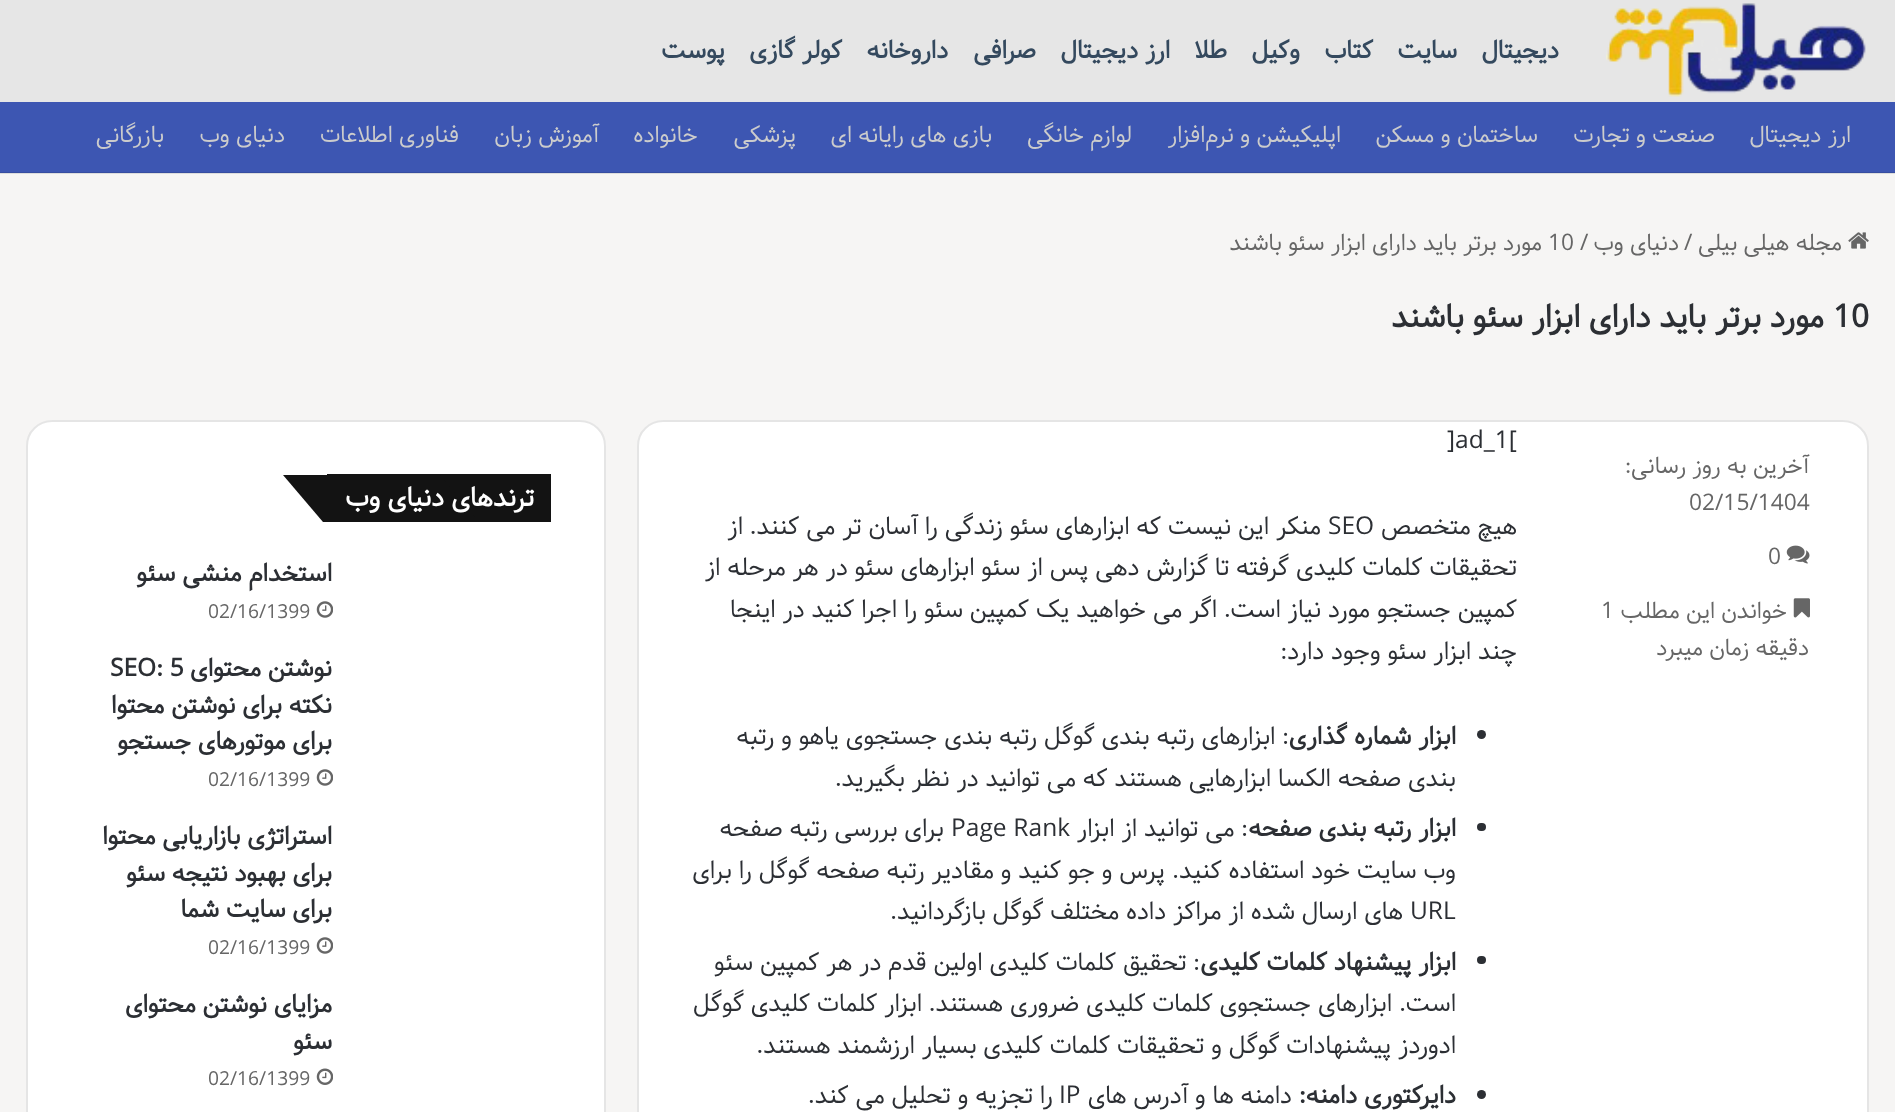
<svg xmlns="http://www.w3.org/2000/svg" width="1895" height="1112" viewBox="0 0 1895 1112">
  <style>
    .t1 { font: bold 24.5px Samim; direction: rtl; fill: #34495e; }
    .t2 { font: 22.75px Samim; direction: rtl; fill: #ccc; }
    .t3 { font: 22.75px Samim; direction: rtl; fill: #666; }
    .t4 { font: 22.75px Samim; fill: #666; }
    .t5 { font: bold 31.5px Samim; fill: #2c2f34; }
    .t6 { font: bold 31.5px Samim; direction: rtl; fill: #2c2f34; }
    .t7 { font: 24.5px Samim; fill: #2c2f34; }
    .t8 { font: 24.5px Samim; direction: rtl; fill: #2c2f34; }
    .t9 { font: bold 24.5px Samim; direction: rtl; fill: #2c2f34; }
    .t10 { font: bold 26.25px Samim; direction: rtl; fill: #fff; }
    .t11 { font: 19.25px Samim; fill: #666; }
    .t12 { font: bold 24.5px Samim; fill: #2c2f34; }
  </style>
  <rect width="100%" height="100%" fill="#f6f5f4"/>
  <rect x="0" y="173" width="1895" height="1" fill="#dddddc"/>
  <rect x="0" y="0" width="1895" height="102" fill="#e6e6e6"/>
  <image x="1606" y="3" width="260" height="94" href="images/1.png"/>
  <text x="1559" y="58" class="t1">دیجیتال</text>
  <text x="1457" y="58" class="t1">سایت</text>
  <text x="1373" y="58" class="t1">کتاب</text>
  <text x="1300" y="58" class="t1">وکیل</text>
  <text x="1227" y="58" class="t1">طلا</text>
  <text x="1170" y="58" class="t1">ارز دیجیتال</text>
  <text x="1036" y="58" class="t1">صرافی</text>
  <text x="948" y="58" class="t1">داروخانه</text>
  <text x="842" y="58" class="t1">کولر گازی</text>
  <text x="725" y="58" class="t1">پوست</text>
  <rect x="0" y="102" width="1895" height="70" fill="#3d56b2"/>
  <rect x="0" y="172" width="1895" height="1" fill="#374da0"/>
  <text x="1851" y="142" class="t2">ارز دیجیتال</text>
  <text x="1715" y="142" class="t2">صنعت و تجارت</text>
  <text x="1538" y="142" class="t2">ساختمان و مسکن</text>
  <text x="1341" y="142" class="t2">اپلیکیشن و نرم‌افزار</text>
  <text x="1132" y="142" class="t2">لوازم خانگی</text>
  <text x="992" y="142" class="t2">بازی های رایانه ای</text>
  <text x="796" y="142" class="t2">پزشکی</text>
  <text x="698" y="142" class="t2">خانواده</text>
  <text x="599" y="142" class="t2">آموزش زبان</text>
  <text x="459" y="142" class="t2">فناوری اطلاعات</text>
  <text x="285" y="142" class="t2">دنیای وب</text>
  <text x="164" y="142" class="t2">بازرگانی</text>
  <image x="1848" y="232" width="21" height="17" href="images/2.png"/>
  <text x="1842" y="250" class="t3">مجله هیلی بیلی</text>
  <text x="1684" y="250" class="t4">/</text>
  <text x="1679" y="250" class="t3">دنیای وب</text>
  <text x="1580" y="250" class="t4">/</text>
  <text x="1548" y="250" class="t4">10</text>
  <text x="1542" y="250" class="t3">مورد برتر باید دارای ابزار سئو باشند</text>
  <text x="1833" y="327" class="t5">10</text>
  <text x="1824" y="327" class="t6">مورد برتر باید دارای ابزار سئو باشند</text>
  <rect x="637" y="420" width="1232" height="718" rx="26" fill="#fff"/>
  <rect x="638" y="421" width="1230" height="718" rx="25" fill="none" stroke="#0000001a" stroke-width="2"/>
  <text x="1809" y="473" class="t3">آخرین به روز رسانی:</text>
  <text x="1689" y="510" class="t4">02/15/1404</text>
  <image x="1786" y="545" width="24" height="19" href="images/3.png"/>
  <text x="1768" y="564" class="t4">0</text>
  <image x="1793" y="598" width="17" height="20" href="images/4.png"/>
  <text x="1787" y="618" class="t3">خواندن این مطلب</text>
  <text x="1601" y="618" class="t4">1</text>
  <text x="1809" y="655" class="t3">دقیقه زمان میبرد</text>
  <text x="1447" y="448" class="t7">]ad_1[</text>
  <text x="1517" y="534" class="t8">هیچ متخصص</text>
  <text x="1328" y="534" class="t7">SEO</text>
  <text x="1321" y="534" class="t8">منکر این نیست که ابزارهای سئو زندگی را آسان تر می کنند.</text>
  <text x="743" y="534" class="t8">از</text>
  <text x="1517" y="575" class="t8">تحقیقات کلمات کلیدی گرفته تا گزارش دهی پس از سئو ابزارهای سئو در هر مرحله از</text>
  <text x="1517" y="617" class="t8">کمپین جستجو مورد نیاز است.</text>
  <text x="1217" y="617" class="t8">اگر می خواهید یک کمپین سئو را اجرا کنید در اینجا</text>
  <text x="1517" y="659" class="t8">چند ابزار سئو وجود دارد:</text>
  <circle cx="1481.5" cy="734.5" r="4.5" fill="#2c2f34"/>
  <text x="1456" y="744" class="t9">ابزار شماره گذاری</text>
  <text x="1289" y="744" class="t8">: ابزارهای رتبه بندی گوگل رتبه بندی جستجوی یاهو و رتبه</text>
  <text x="1456" y="786" class="t8">بندی صفحه الکسا ابزارهایی هستند که می توانید در نظر بگیرید.</text>
  <rect x="1477" y="823" width="9" height="8" rx="4" fill="#2c2f34"/>
  <text x="1456" y="836" class="t9">ابزار رتبه بندی صفحه</text>
  <text x="1248" y="836" class="t8">: می توانید از ابزار</text>
  <text x="951" y="836" class="t7">Page Rank</text>
  <text x="944" y="836" class="t8">برای بررسی رتبه صفحه</text>
  <text x="1456" y="878" class="t8">وب سایت خود استفاده کنید.</text>
  <text x="1165" y="878" class="t8">پرس و جو کنید و مقادیر رتبه صفحه گوگل را برای</text>
  <text x="1410" y="919" class="t7">URL</text>
  <text x="1403" y="919" class="t8">های ارسال شده از مراکز داده مختلف گوگل بازگردانید.</text>
  <rect x="1477" y="956" width="9" height="8" rx="4" fill="#2c2f34"/>
  <text x="1456" y="970" class="t9">ابزار پیشنهاد کلمات کلیدی</text>
  <text x="1200" y="970" class="t8">: تحقیق کلمات کلیدی اولین قدم در هر کمپین سئو</text>
  <text x="1456" y="1011" class="t8">است.</text>
  <text x="1392" y="1011" class="t8">ابزارهای جستجوی کلمات کلیدی ضروری هستند.</text>
  <text x="922" y="1011" class="t8">ابزار کلمات کلیدی گوگل</text>
  <text x="1456" y="1053" class="t8">ادوردز پیشنهادات گوگل و تحقیقات کلمات کلیدی بسیار ارزشمند هستند.</text>
  <circle cx="1481.5" cy="1094.5" r="4.5" fill="#2c2f34"/>
  <text x="1456" y="1103" class="t9">دایرکتوری دامنه:</text>
  <text x="1292" y="1103" class="t8">دامنه ها و آدرس های</text>
  <text x="1059" y="1103" class="t7">IP</text>
  <text x="1053" y="1103" class="t8">را تجزیه و تحلیل می کند.</text>
  <rect x="26" y="420" width="580" height="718" rx="26" fill="#fff"/>
  <rect x="27" y="421" width="578" height="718" rx="25" fill="none" stroke="#0000001a" stroke-width="2"/>
  <rect x="327" y="474" width="224" height="48" fill="#131313"/>
  <path d="M283 475H440L479 522H323Z" fill="#131313"/>
  <text x="534" y="506" class="t10">ترندهای دنیای وب</text>
  <text x="332" y="581" class="t9">استخدام منشی سئو</text>
  <image x="316" y="601" width="17" height="17" href="images/5.png"/>
  <text x="208" y="618" class="t11">02/16/1399</text>
  <text x="332" y="676" class="t9">نوشتن محتوای</text>
  <text x="110" y="676" class="t12">SEO: 5</text>
  <text x="332" y="713" class="t9">نکته برای نوشتن محتوا</text>
  <text x="332" y="749" class="t9">برای موتورهای جستجو</text>
  <image x="316" y="769" width="17" height="17" href="images/5.png"/>
  <text x="208" y="786" class="t11">02/16/1399</text>
  <text x="332" y="844" class="t9">استراتژی بازاریابی محتوا</text>
  <text x="332" y="881" class="t9">برای بهبود نتیجه سئو</text>
  <text x="332" y="917" class="t9">برای سایت شما</text>
  <image x="316" y="937" width="17" height="17" href="images/5.png"/>
  <text x="208" y="954" class="t11">02/16/1399</text>
  <text x="332" y="1012" class="t9">مزایای نوشتن محتوای</text>
  <text x="332" y="1049" class="t9">سئو</text>
  <image x="316" y="1068" width="17" height="17" href="images/6.png"/>
  <text x="208" y="1085" class="t11">02/16/1399</text>
</svg>
